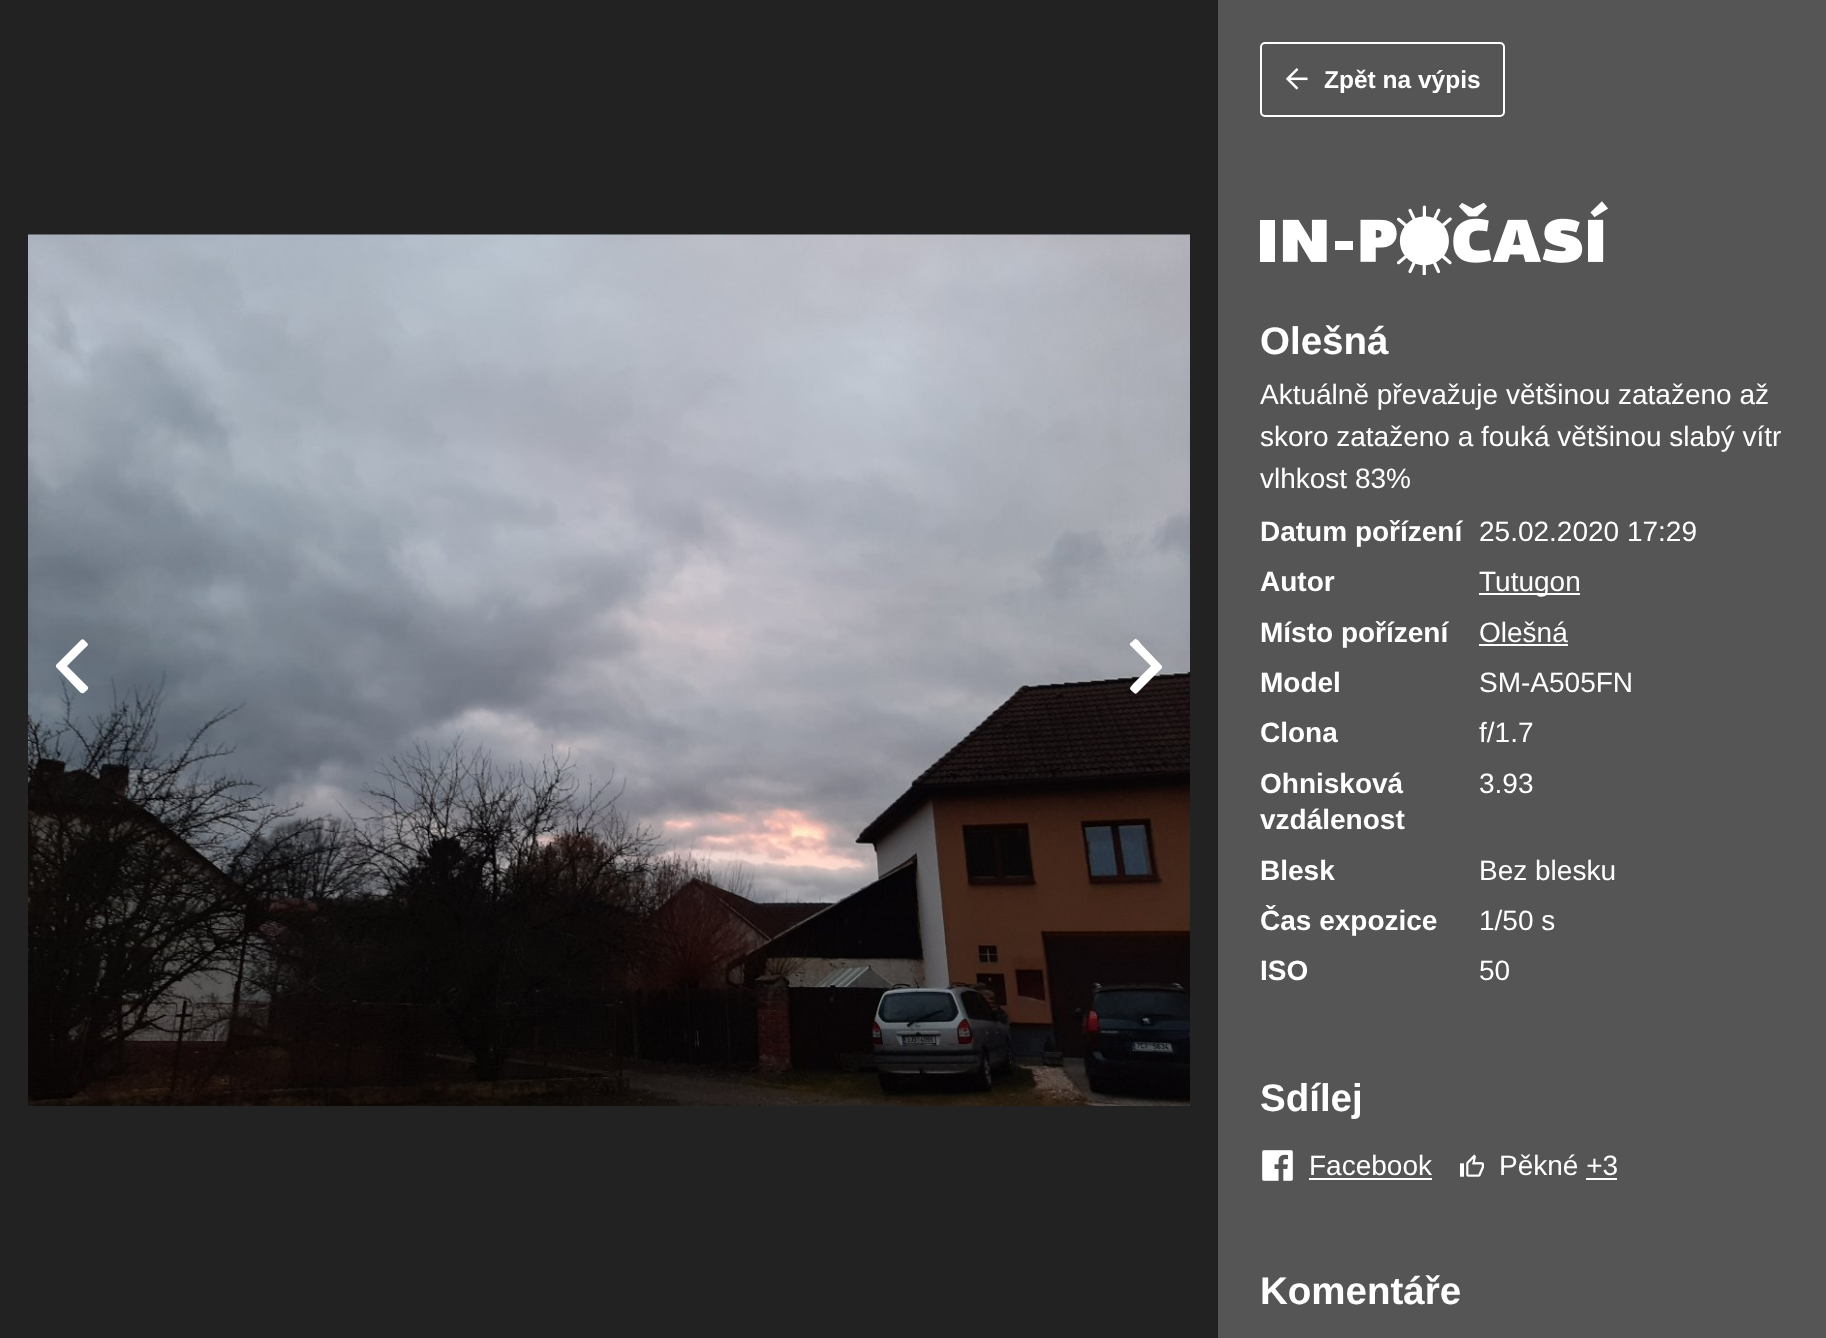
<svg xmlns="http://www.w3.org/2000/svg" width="1826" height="1338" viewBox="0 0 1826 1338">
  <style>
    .t1 { font: bold 24.5px Liberation Sans; fill: #fff; }
    .t2 { font: bold 38.5px Liberation Sans; fill: #fff; }
    .t3 { font: 28px Liberation Sans; fill: #fff; }
    .t4 { font: bold 28px Liberation Sans; fill: #fff; }
  </style>
  <rect width="100%" height="100%" fill="#222"/>
  <image x="28" y="234" width="1162" height="872" href="images/1.png"/>
  <path d="M56 665L81 640C83 638 85 641 86 642C90 645 87 646 84 649L67 666L88 687C89 689 86 691 85 692C82 695 80 692 77 689L56 667Z" fill="#fff"/>
  <path d="M1162 668L1137 693C1135 695 1133 692 1132 691C1128 688 1131 687 1134 683L1151 666L1130 645C1129 643 1132 642 1133 641C1136 637 1138 640 1141 644L1162 666Z" fill="#fff"/>
  <rect x="1218" y="0" width="608" height="1338" fill="#555"/>
  <rect x="1261" y="43" width="243" height="73" rx="4" fill="none" stroke="#fff" stroke-width="2"/>
  <image x="1286" y="68" width="22" height="22" href="images/2.png"/>
  <text x="1324" y="88" class="t1">Zpět na výpis</text>
  <image x="1260" y="201" width="348" height="74" href="images/3.png"/>
  <text x="1260" y="354" class="t2">Olešná</text>
  <text x="1260" y="404" class="t3">Aktuálně převažuje většinou zataženo až</text>
  <text x="1260" y="446" class="t3">skoro zataženo a fouká většinou slabý vítr</text>
  <text x="1260" y="488" class="t3">vlhkost 83%</text>
  <text x="1260" y="541" class="t4">Datum pořízení</text>
  <text x="1479" y="541" class="t3">25.02.2020 17:29</text>
  <text x="1260" y="591" class="t4">Autor</text>
  <rect x="1479" y="593" width="101" height="2" fill="#fff"/>
  <text x="1479" y="591" class="t3">Tutugon</text>
  <text x="1260" y="642" class="t4">Místo pořízení</text>
  <text x="1479" y="642" class="t3">Olešná</text>
  <rect x="1479" y="644" width="89" height="2" fill="#fff"/>
  <text x="1260" y="692" class="t4">Model</text>
  <text x="1479" y="692" class="t3">SM-A505FN</text>
  <text x="1260" y="742" class="t4">Clona</text>
  <text x="1479" y="742" class="t3">f/1.7</text>
  <text x="1260" y="793" class="t4">Ohnisková</text>
  <text x="1260" y="829" class="t4">vzdálenost</text>
  <text x="1479" y="793" class="t3">3.93</text>
  <text x="1260" y="880" class="t4">Blesk</text>
  <text x="1479" y="880" class="t3">Bez blesku</text>
  <text x="1260" y="930" class="t4">Čas expozice</text>
  <text x="1479" y="930" class="t3">1/50 s</text>
  <text x="1260" y="980" class="t4">ISO</text>
  <text x="1479" y="980" class="t3">50</text>
  <text x="1260" y="1111" class="t2">Sdílej</text>
  <image x="1262" y="1150" width="31" height="31" href="images/4.png"/>
  <text x="1309" y="1175" class="t3">Facebook</text>
  <rect x="1309" y="1178" width="123" height="2" fill="#fff"/>
  <image x="1460" y="1154" width="24" height="23" href="images/5.png"/>
  <text x="1499" y="1175" class="t3">Pěkné +3</text>
  <rect x="1586" y="1178" width="31" height="2" fill="#fff"/>
  <text x="1260" y="1304" class="t2">Komentáře</text>
</svg>
